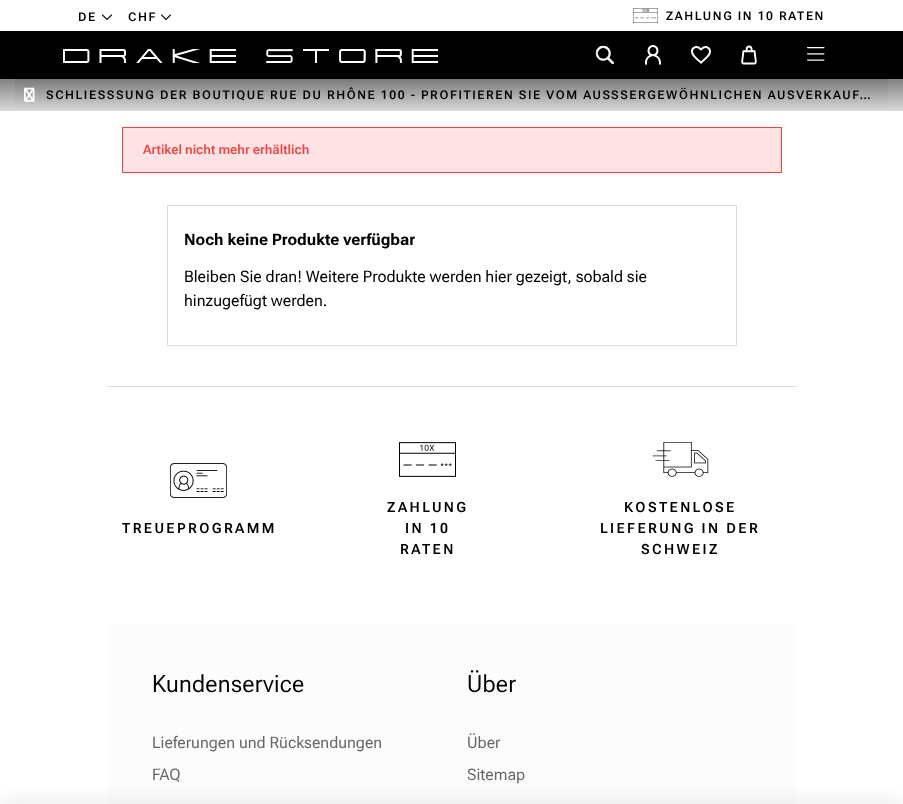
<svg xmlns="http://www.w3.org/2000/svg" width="903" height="804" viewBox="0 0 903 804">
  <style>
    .t1 { font: 600 12px 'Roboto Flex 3'; letter-spacing: 1.6px; fill: #000; }
    .t2 { font: 600 13px Roboto Flex; fill: #ef4444; }
    .t3 { font: bold 16px Roboto Flex; fill: #000; }
    .t4 { font: 16px Roboto Flex; fill: #000; }
    .t5 { font: 600 14px 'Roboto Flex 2'; letter-spacing: 2.4px; fill: #000; }
    .t6 { font: 24px 'Roboto Flex 2'; letter-spacing: 0.25px; fill: #000; }
    .t7 { font: 16px Roboto Flex; fill: #676767; }
  </style>
  <defs>
    <linearGradient id="g1" gradientUnits="userSpaceOnUse" x1="452" y1="79" x2="452" y2="111"><stop offset="0" stop-color="#818281"/><stop offset="1" stop-color="#d9dcd9"/></linearGradient>
    <linearGradient id="g2" gradientUnits="userSpaceOnUse" x1="452" y1="79" x2="452" y2="111"><stop offset="0" stop-color="#787978" stop-opacity="0.92"/><stop offset="1" stop-color="#d7dad7" stop-opacity="0.89"/></linearGradient>
  </defs>
  <rect width="100%" height="100%" fill="#fff"/>
  <text x="78" y="21" class="t1">DE</text>
  <image x="102" y="14" width="10" height="6" href="images/1.png"/>
  <text x="128" y="21" class="t1">CHF</text>
  <image x="161" y="14" width="10" height="6" href="images/1.png"/>
  <image x="633" y="8" width="25" height="15" href="images/2.png"/>
  <text x="666" y="20" class="t1">ZAHLUNG IN 10 RATEN</text>
  <rect x="0" y="31" width="903" height="48" fill="#000"/>
  <image x="63" y="49" width="375" height="14" href="images/3.png"/>
  <image x="595" y="45" width="19" height="20" href="images/4.png"/>
  <image x="645" y="45" width="16" height="20" href="images/5.png"/>
  <image x="691" y="46" width="20" height="18" href="images/6.png"/>
  <image x="741" y="45" width="16" height="20" href="images/7.png"/>
  <image x="807" y="47" width="18" height="14" href="images/8.png"/>
  <rect x="0" y="79" width="903" height="32" fill="url(#g1)"/>
  <rect x="15" y="79" width="873" height="30" fill="url(#g2)"/>
  <image x="24" y="87" width="11" height="15" href="images/9.png"/>
  <text x="46" y="99" class="t1">SCHLIESSSUNG DER BOUTIQUE RUE DU RHÔNE 100 - PROFITIEREN SIE VOM AUS</text>
  <text x="611" y="99" class="t1">SSERGEWÖHNLICHEN AUSVERKAUF…</text>
  <rect x="122.5" y="127.5" width="659" height="45" fill="#fde3e3" stroke="#ef4444"/>
  <text x="143" y="154" class="t2">Artikel nicht mehr erhältlich</text>
  <rect x="167.5" y="205.5" width="569" height="140" fill="none" stroke="#dcdcdc"/>
  <text x="184" y="245" class="t3">Noch keine Produkte verfügbar</text>
  <text x="184" y="282" class="t4">Bleiben Sie dran! Weitere Produkte werden hier gezeigt, sobald sie</text>
  <text x="184" y="306" class="t4">hinzugefügt werden.</text>
  <rect x="107" y="386" width="690" height="1" fill="#dcdcdc"/>
  <image x="170" y="463" width="57" height="35" href="images/10.png"/>
  <text x="122" y="533" class="t5">TREUEPROGRAMM</text>
  <image x="399" y="442" width="57" height="35" href="images/11.png"/>
  <text x="387" y="512" class="t5">ZAHLUNG</text>
  <text x="405" y="533" class="t5">IN 10</text>
  <text x="400" y="554" class="t5">RATEN</text>
  <image x="652" y="442" width="57" height="35" href="images/12.png"/>
  <text x="624" y="512" class="t5">KOSTENLOSE</text>
  <text x="600" y="533" class="t5">LIEFERUNG IN DER</text>
  <text x="641" y="554" class="t5">SCHWEIZ</text>
  <rect x="107" y="625" width="690" height="179" fill="#fcfcfc"/>
  <text x="152" y="692" class="t6">Kundenservice</text>
  <text x="152" y="748" class="t7">Lieferungen und Rücksendungen</text>
  <text x="152" y="780" class="t7">FAQ</text>
  <text x="467" y="692" class="t6">Über</text>
  <text x="467" y="748" class="t7">Über</text>
  <text x="467" y="780" class="t7">Sitemap</text>
  <rect x="0" y="804" width="903" height="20" fill="#0000001a" filter="blur(12px)"/>
</svg>
